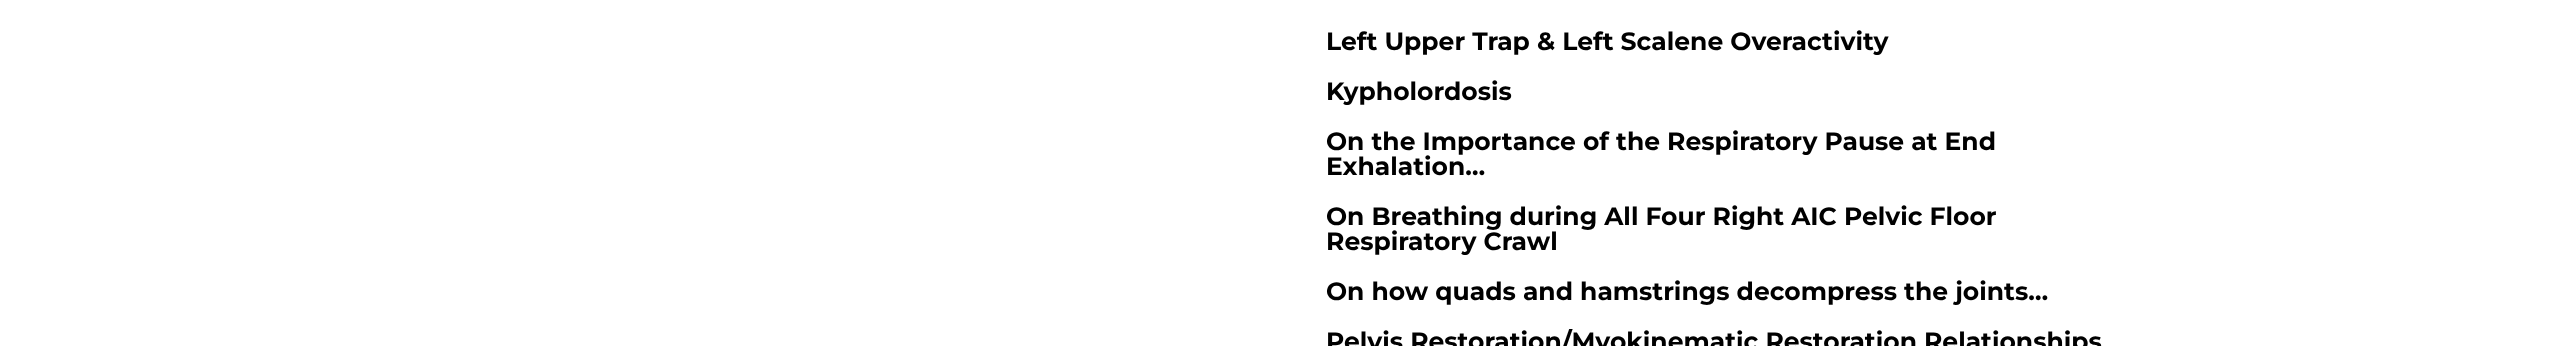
<svg xmlns="http://www.w3.org/2000/svg" width="2564" height="346" viewBox="0 0 2564 346">
  <style>
    .t1 { font: bold 25px Montserrat; fill: #000; }
  </style>
  <rect width="100%" height="100%" fill="#fff"/>
  <text x="1326" y="50" class="t1">Left Upper Trap &amp; Left Scalene Overactivity</text>
  <text x="1326" y="100" class="t1">Kypholordosis</text>
  <text x="1326" y="150" class="t1">On the Importance of the Respiratory Pause at End</text>
  <text x="1326" y="175" class="t1">Exhalation…</text>
  <text x="1326" y="225" class="t1">On Breathing during All Four Right AIC Pelvic Floor</text>
  <text x="1326" y="250" class="t1">Respiratory Crawl</text>
  <text x="1326" y="300" class="t1">On how quads and hamstrings decompress the joints…</text>
  <text x="1326" y="350" class="t1">Pelvis Restoration/Myokinematic Restoration Relationships</text>
</svg>
